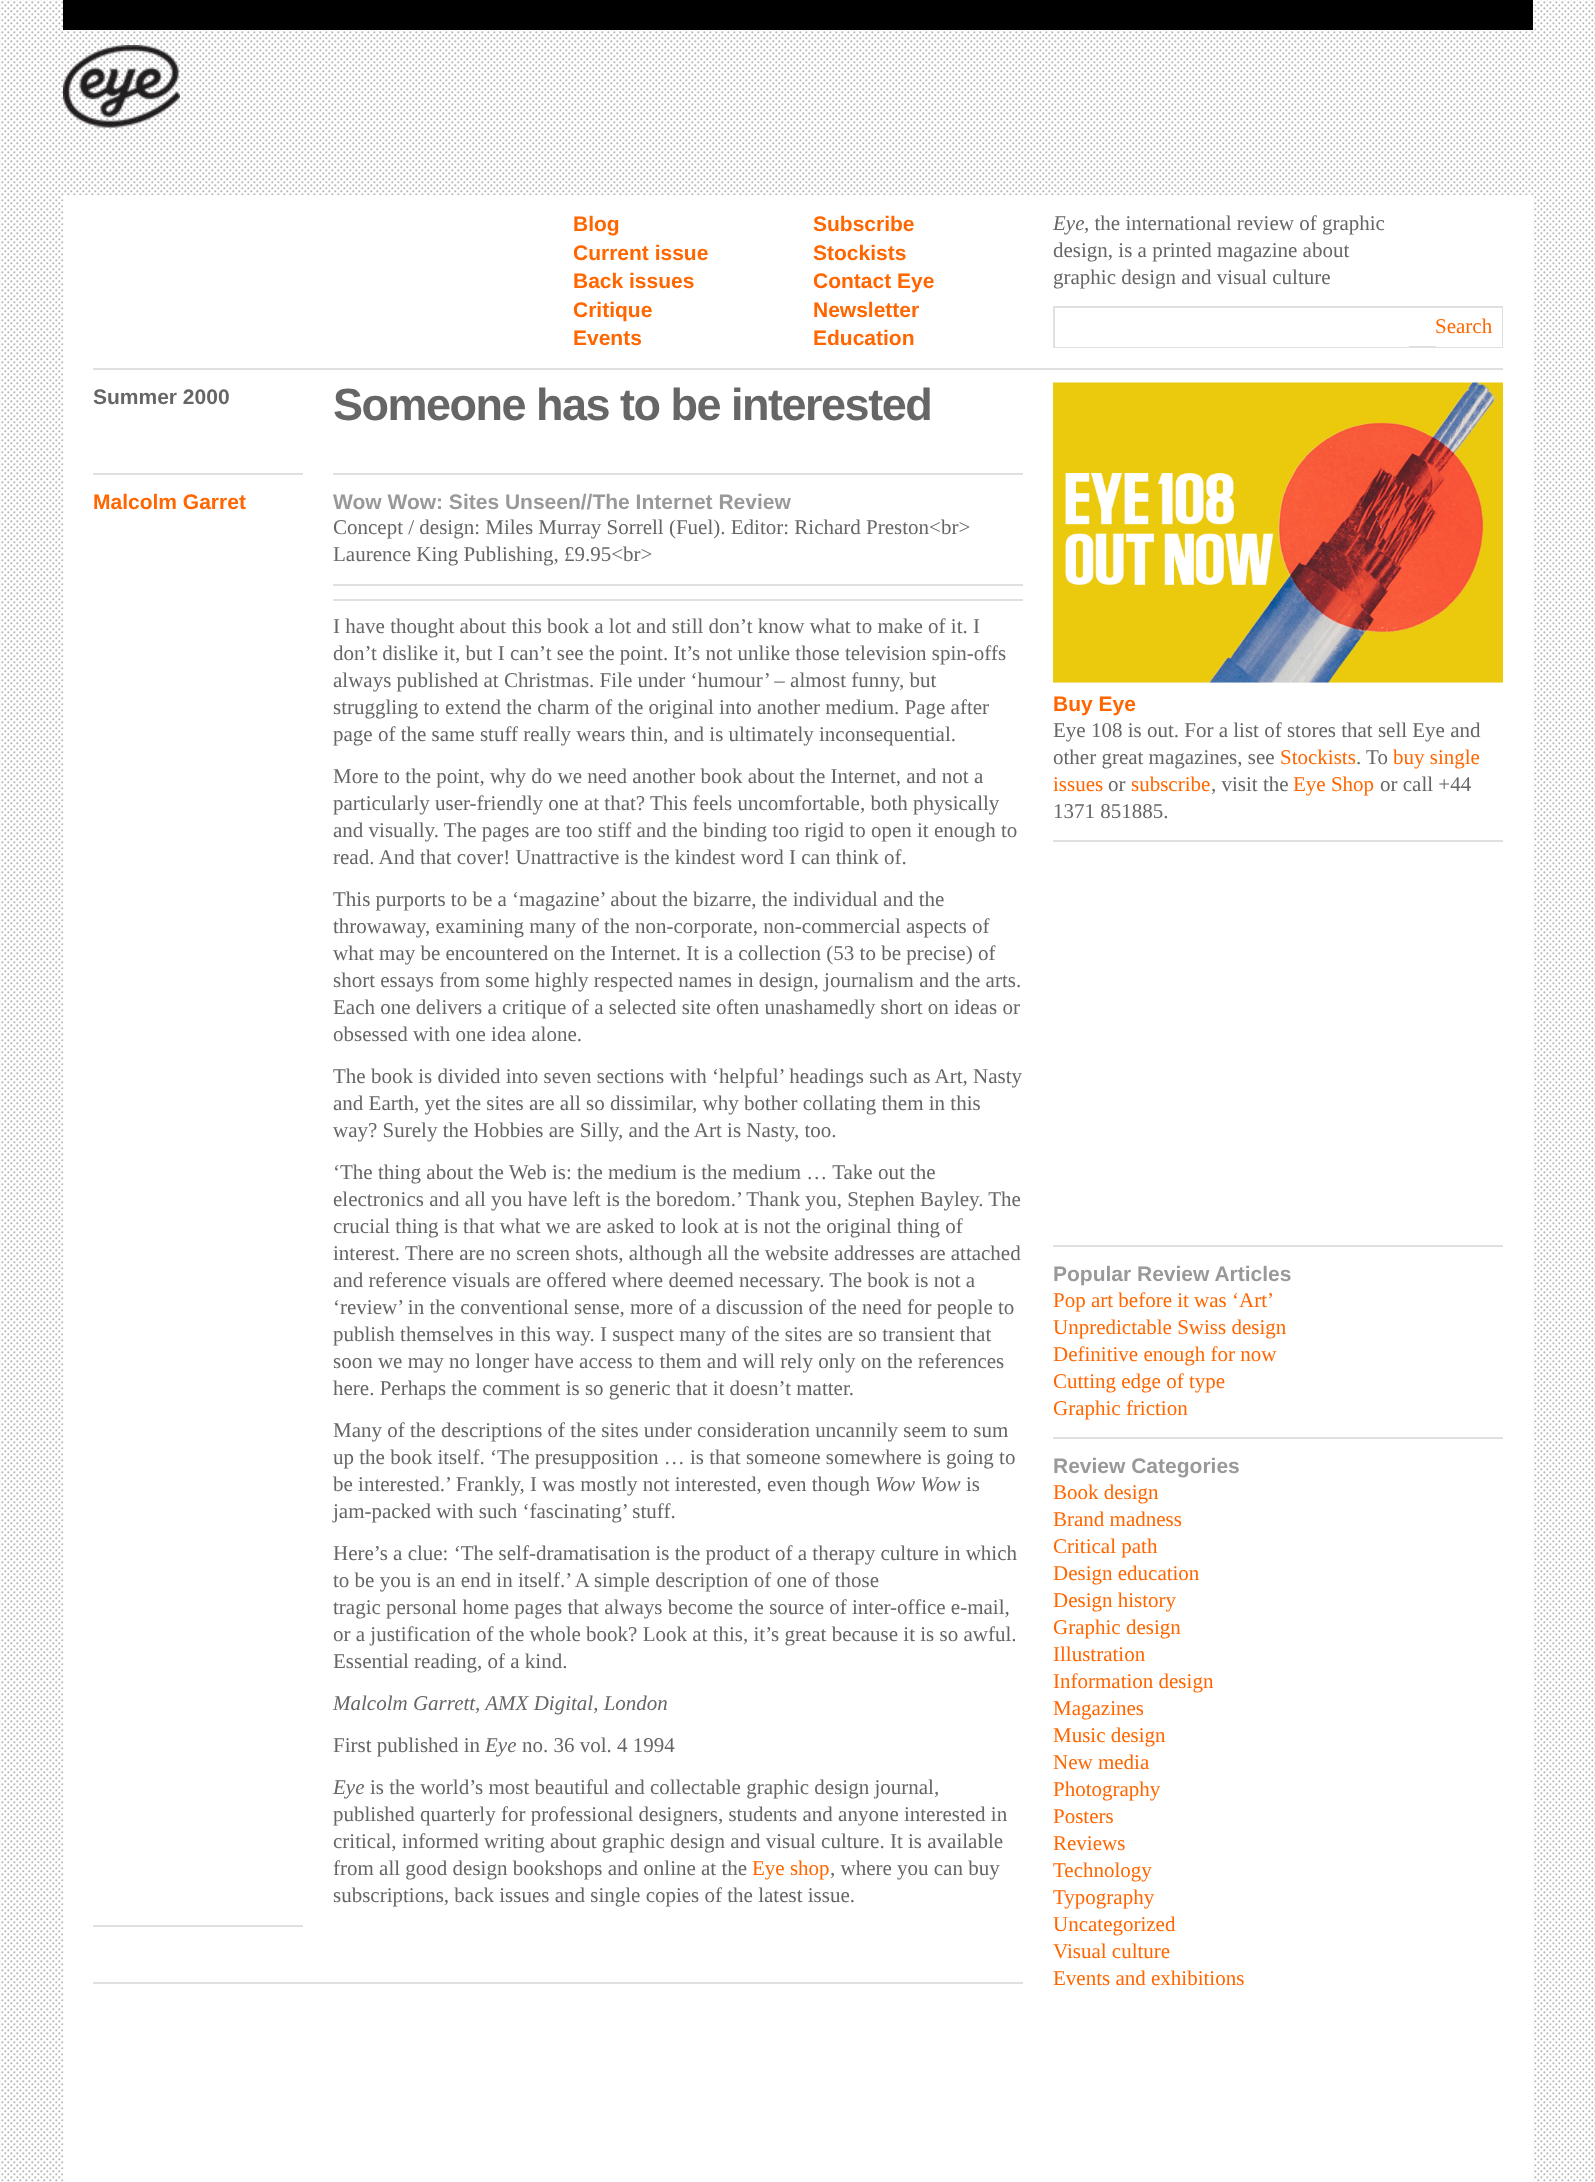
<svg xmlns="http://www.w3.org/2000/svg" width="1595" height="2182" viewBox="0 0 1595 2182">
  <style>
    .t1 { font: bold 21px Liberation Sans; fill: #f60; }
    .t2 { font: italic 21px Liberation Serif; fill: #666; }
    .t3 { font: 21px Liberation Serif; fill: #666; }
    .t4 { font: 21px Liberation Serif; fill: #f60; }
    .t5 { font: bold 21px Liberation Sans; fill: #666; }
    .t6 { font: bold 45px Liberation Sans; letter-spacing: -1.5px; fill: #666; }
    .t7 { font: bold 21px Liberation Sans; fill: #999; }
  </style>
  <rect width="100%" height="100%" fill="#fff"/>
  <image x="0" y="0" width="1595" height="2182" href="images/1.png"/>
  <rect x="63" y="0" width="1470" height="30" fill="#000"/>
  <image x="63" y="45" width="117" height="83" href="images/2.png"/>
  <rect x="63" y="195" width="1470" height="1987" fill="#fff"/>
  <text x="573" y="231" class="t1">Blog</text>
  <text x="813" y="231" class="t1">Subscribe</text>
  <text x="573" y="260" class="t1">Current issue</text>
  <text x="813" y="260" class="t1">Stockists</text>
  <text x="573" y="288" class="t1">Back issues</text>
  <text x="813" y="288" class="t1">Contact Eye</text>
  <text x="573" y="317" class="t1">Critique</text>
  <text x="813" y="317" class="t1">Newsletter</text>
  <text x="573" y="345" class="t1">Events</text>
  <text x="813" y="345" class="t1">Education</text>
  <text x="1053" y="230" class="t2">Eye</text>
  <text x="1084" y="230" class="t3">, the international review of graphic</text>
  <text x="1053" y="257" class="t3">design, is a printed magazine about</text>
  <text x="1053" y="284" class="t3">graphic design and visual culture</text>
  <rect x="1054" y="307" width="448" height="40" fill="none" stroke="#e0e0e0" stroke-width="2"/>
  <rect x="1436" y="308" width="66" height="39" fill="#fff"/>
  <text x="1435" y="333" class="t4">Search</text>
  <rect x="1055" y="346" width="354" height="1" fill="#fff"/>
  <rect x="93" y="368" width="1410" height="2" fill="#e0e0e0"/>
  <text x="93" y="404" class="t5">Summer 2000</text>
  <text x="333" y="420" class="t6">Someone has to be interested</text>
  <rect x="93" y="473" width="210" height="2" fill="#e0e0e0"/>
  <text x="93" y="509" class="t1">Malcolm Garret</text>
  <rect x="333" y="473" width="690" height="2" fill="#e0e0e0"/>
  <text x="333" y="509" class="t7">Wow Wow: Sites Unseen//The Internet Review</text>
  <text x="333" y="534" class="t3">Concept / design: Miles Murray Sorrell (Fuel). Editor: Richard Preston&lt;br&gt;</text>
  <text x="333" y="561" class="t3">Laurence King Publishing, £9.95&lt;br&gt;</text>
  <rect x="333" y="584" width="690" height="2" fill="#e0e0e0"/>
  <rect x="333" y="599" width="690" height="2" fill="#e0e0e0"/>
  <text x="333" y="633" class="t3">I have thought about this book a lot and still don’t know what to make of it. I</text>
  <text x="333" y="660" class="t3">don’t dislike it, but I can’t see the point. It’s not unlike those television spin-offs</text>
  <text x="333" y="687" class="t3">always published at Christmas. File under ‘humour’ – almost funny, but</text>
  <text x="333" y="714" class="t3">struggling to extend the charm of the original into another medium. Page after</text>
  <text x="333" y="741" class="t3">page of the same stuff really wears thin, and is ultimately inconsequential.</text>
  <text x="333" y="783" class="t3">More to the point, why do we need another book about the Internet, and not a</text>
  <text x="333" y="810" class="t3">particularly user-friendly one at that? This feels uncomfortable, both physically</text>
  <text x="333" y="837" class="t3">and visually. The pages are too stiff and the binding too rigid to open it enough to</text>
  <text x="333" y="864" class="t3">read. And that cover! Unattractive is the kindest word I can think of.</text>
  <text x="333" y="906" class="t3">This purports to be a ‘magazine’ about the bizarre, the individual and the</text>
  <text x="333" y="933" class="t3">throwaway, examining many of the non-corporate, non-commercial aspects of</text>
  <text x="333" y="960" class="t3">what may be encountered on the Internet. It is a collection (53 to be precise) of</text>
  <text x="333" y="987" class="t3">short essays from some highly respected names in design, journalism and the arts.</text>
  <text x="333" y="1014" class="t3">Each one delivers a critique of a selected site often unashamedly short on ideas or</text>
  <text x="333" y="1041" class="t3">obsessed with one idea alone.</text>
  <text x="333" y="1083" class="t3">The book is divided into seven sections with ‘helpful’ headings such as Art, Nasty</text>
  <text x="333" y="1110" class="t3">and Earth, yet the sites are all so dissimilar, why bother collating them in this</text>
  <text x="333" y="1137" class="t3">way? Surely the Hobbies are Silly, and the Art is Nasty, too.</text>
  <text x="333" y="1179" class="t3">‘The thing about the Web is: the medium is the medium … Take out the</text>
  <text x="333" y="1206" class="t3">electronics and all you have left is the boredom.’ Thank you, Stephen Bayley. The</text>
  <text x="333" y="1233" class="t3">crucial thing is that what we are asked to look at is not the original thing of</text>
  <text x="333" y="1260" class="t3">interest. There are no screen shots, although all the website addresses are attached</text>
  <text x="333" y="1287" class="t3">and reference visuals are offered where deemed necessary. The book is not a</text>
  <text x="333" y="1314" class="t3">‘review’ in the conventional sense, more of a discussion of the need for people to</text>
  <text x="333" y="1341" class="t3">publish themselves in this way. I suspect many of the sites are so transient that</text>
  <text x="333" y="1368" class="t3">soon we may no longer have access to them and will rely only on the references</text>
  <text x="333" y="1395" class="t3">here. Perhaps the comment is so generic that it doesn’t matter.</text>
  <text x="333" y="1437" class="t3">Many of the descriptions of the sites under consideration uncannily seem to sum</text>
  <text x="333" y="1464" class="t3">up the book itself. ‘The presupposition … is that someone somewhere is going to</text>
  <text x="333" y="1491" class="t3">be interested.’ Frankly, I was mostly not interested, even though</text>
  <text x="875" y="1491" class="t2">Wow Wow</text>
  <text x="966" y="1491" class="t3">is</text>
  <text x="333" y="1518" class="t3">jam-packed with such ‘fascinating’ stuff.</text>
  <text x="333" y="1560" class="t3">Here’s a clue: ‘The self-dramatisation is the product of a therapy culture in which</text>
  <text x="333" y="1587" class="t3">to be you is an end in itself.’ A simple description of one of those</text>
  <text x="333" y="1614" class="t3">tragic personal home pages that always become the source of inter-office e-mail,</text>
  <text x="333" y="1641" class="t3">or a justification of the whole book? Look at this, it’s great because it is so awful.</text>
  <text x="333" y="1668" class="t3">Essential reading, of a kind.</text>
  <text x="333" y="1710" class="t2">Malcolm Garrett, AMX Digital, London</text>
  <text x="333" y="1752" class="t3">First published in</text>
  <text x="485" y="1752" class="t2">Eye</text>
  <text x="522" y="1752" class="t3">no. 36 vol. 4 1994</text>
  <text x="333" y="1794" class="t2">Eye</text>
  <text x="370" y="1794" class="t3">is the world’s most beautiful and collectable graphic design journal,</text>
  <text x="333" y="1821" class="t3">published quarterly for professional designers, students and anyone interested in</text>
  <text x="333" y="1848" class="t3">critical, informed writing about graphic design and visual culture. It is available</text>
  <text x="333" y="1875" class="t3">from all good design bookshops and online at the</text>
  <text x="752" y="1875" class="t4">Eye shop</text>
  <text x="830" y="1875" class="t3">, where you can buy</text>
  <text x="333" y="1902" class="t3">subscriptions, back issues and single copies of the latest issue.</text>
  <rect x="93" y="1925" width="210" height="2" fill="#e0e0e0"/>
  <rect x="93" y="1982" width="930" height="2" fill="#e0e0e0"/>
  <rect x="1053" y="682" width="450" height="1" fill="#f5f5f5"/>
  <image x="1053" y="382" width="450" height="301" href="images/3.png"/>
  <text x="1053" y="711" class="t1">Buy Eye</text>
  <text x="1053" y="737" class="t3">Eye 108 is out. For a list of stores that sell Eye and</text>
  <text x="1053" y="764" class="t3">other great magazines, see</text>
  <text x="1280" y="764" class="t4">Stockists</text>
  <text x="1356" y="764" class="t3">. To</text>
  <text x="1393" y="764" class="t4">buy single</text>
  <text x="1053" y="791" class="t4">issues</text>
  <text x="1108" y="791" class="t3">or</text>
  <text x="1131" y="791" class="t4">subscribe</text>
  <text x="1211" y="791" class="t3">, visit the</text>
  <text x="1293" y="791" class="t4">Eye Shop</text>
  <text x="1380" y="791" class="t3">or call +44</text>
  <text x="1053" y="818" class="t3">1371 851885.</text>
  <rect x="1053" y="840" width="450" height="2" fill="#e0e0e0"/>
  <rect x="1053" y="1245" width="450" height="2" fill="#e0e0e0"/>
  <text x="1053" y="1281" class="t7">Popular Review Articles</text>
  <text x="1053" y="1307" class="t4">Pop art before it was ‘Art’</text>
  <text x="1053" y="1334" class="t4">Unpredictable Swiss design</text>
  <text x="1053" y="1361" class="t4">Definitive enough for now</text>
  <text x="1053" y="1388" class="t4">Cutting edge of type</text>
  <text x="1053" y="1415" class="t4">Graphic friction</text>
  <rect x="1053" y="1437" width="450" height="2" fill="#e0e0e0"/>
  <text x="1053" y="1473" class="t7">Review Categories</text>
  <text x="1053" y="1499" class="t4">Book design</text>
  <text x="1053" y="1526" class="t4">Brand madness</text>
  <text x="1053" y="1553" class="t4">Critical path</text>
  <text x="1053" y="1580" class="t4">Design education</text>
  <text x="1053" y="1607" class="t4">Design history</text>
  <text x="1053" y="1634" class="t4">Graphic design</text>
  <text x="1053" y="1661" class="t4">Illustration</text>
  <text x="1053" y="1688" class="t4">Information design</text>
  <text x="1053" y="1715" class="t4">Magazines</text>
  <text x="1053" y="1742" class="t4">Music design</text>
  <text x="1053" y="1769" class="t4">New media</text>
  <text x="1053" y="1796" class="t4">Photography</text>
  <text x="1053" y="1823" class="t4">Posters</text>
  <text x="1053" y="1850" class="t4">Reviews</text>
  <text x="1053" y="1877" class="t4">Technology</text>
  <text x="1053" y="1904" class="t4">Typography</text>
  <text x="1053" y="1931" class="t4">Uncategorized</text>
  <text x="1053" y="1958" class="t4">Visual culture</text>
  <text x="1053" y="1985" class="t4">Events and exhibitions</text>
</svg>
